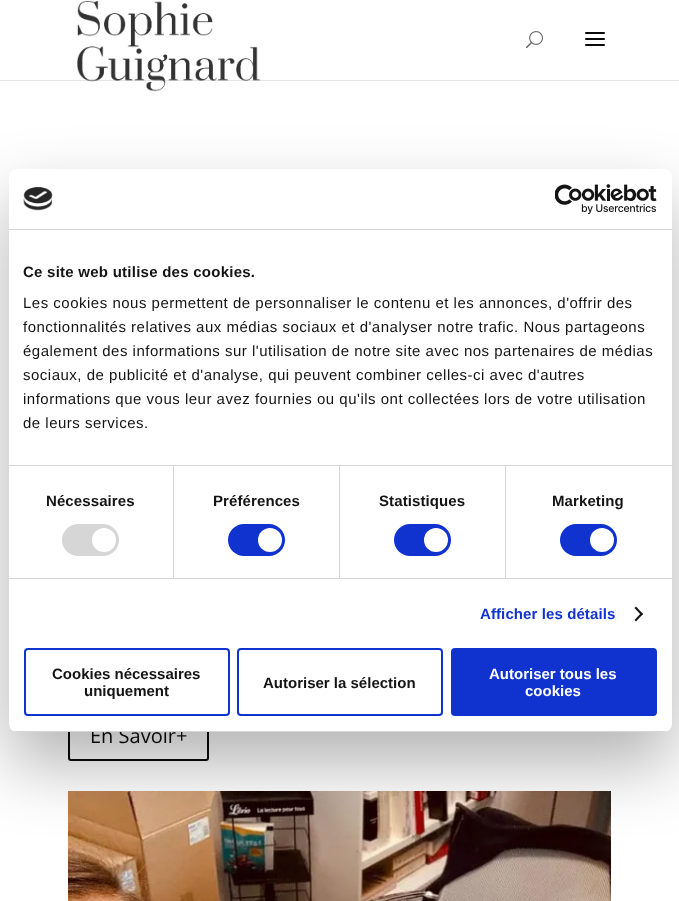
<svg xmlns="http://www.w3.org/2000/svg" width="679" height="901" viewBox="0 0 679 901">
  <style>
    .t1 { font: 20px Open Sans; fill: #0a0a0a; }
    .t2 { font: bold 15px Liberation Sans; letter-spacing: 0.25px; fill: #141414; }
    .t3 { font: 15px Liberation Sans; letter-spacing: 0.5px; fill: #141414; }
    .t4 { font: bold 15px Liberation Sans; letter-spacing: 0.1px; fill: #141414; }
    .t5 { font: bold 15px Liberation Sans; letter-spacing: 0.1px; fill: #1032cf; }
    .t6 { font: bold 15px Liberation Sans; fill: #141414; }
    .t7 { font: bold 15px Liberation Sans; fill: #fff; }
  </style>
  <defs>
    <clipPath id="clip1"><rect x="9" y="169" width="663" height="563" rx="8"/></clipPath>
  </defs>
  <rect width="100%" height="100%" fill="#fff"/>
  <rect x="69" y="712" width="139" height="48" rx="2" fill="none" stroke="#0a0a0a" stroke-width="2"/>
  <image x="68" y="791" width="543" height="110" href="images/6.png"/>
  <rect x="9" y="201" width="663" height="563" rx="8" fill="#0000004d" filter="blur(34px)"/>
  <text x="90" y="743" class="t1">En Savoir+</text>
  <rect x="9" y="169" width="663" height="563" rx="8" fill="#fff"/>
  <rect x="9" y="229" width="663" height="1" fill="#d6d6d6"/>
  <image x="23" y="187" width="30" height="24" href="images/1.png"/>
  <image x="555" y="184" width="102" height="30" href="images/2.png"/>
  <rect x="9" y="465" width="663" height="1" fill="#d6d6d6"/>
  <text x="23" y="277" class="t2">Ce site web utilise des cookies.</text>
  <text x="23" y="308" class="t3">Les cookies nous permettent de personnaliser le contenu et les annonces, d'offrir des</text>
  <text x="23" y="332" class="t3">fonctionnalités relatives aux médias sociaux et d'analyser notre trafic. Nous partageons</text>
  <text x="23" y="356" class="t3">également des informations sur l'utilisation de notre site avec nos partenaires de médias</text>
  <text x="23" y="380" class="t3">sociaux, de publicité et d'analyse, qui peuvent combiner celles-ci avec d'autres</text>
  <text x="23" y="404" class="t3">informations que vous leur avez fournies ou qu'ils ont collectées lors de votre utilisation</text>
  <text x="23" y="428" class="t3">de leurs services.</text>
  <rect x="9" y="578" width="663" height="1" fill="#d6d6d6"/>
  <rect x="173" y="466" width="1" height="112" fill="#d6d6d6"/>
  <text x="46" y="506" class="t4">Nécessaires</text>
  <rect x="62" y="524" width="57" height="32" rx="16" fill="#d6d6d6"/>
  <circle cx="104" cy="540" r="12" fill="#fff"/>
  <rect x="339" y="466" width="1" height="112" fill="#d6d6d6"/>
  <text x="213" y="506" class="t4">Préférences</text>
  <rect x="228" y="524" width="57" height="32" rx="16" fill="#1032cf"/>
  <circle cx="270" cy="540" r="12" fill="#fff"/>
  <rect x="505" y="466" width="1" height="112" fill="#d6d6d6"/>
  <text x="379" y="506" class="t4">Statistiques</text>
  <rect x="394" y="524" width="57" height="32" rx="16" fill="#1032cf"/>
  <circle cx="436" cy="540" r="12" fill="#fff"/>
  <text x="552" y="506" class="t4">Marketing</text>
  <rect x="560" y="524" width="57" height="32" rx="16" fill="#1032cf"/>
  <circle cx="602" cy="540" r="12" fill="#fff"/>
  <text x="480" y="619" class="t5">Afficher les détails</text>
  <path d="M636 606.5L643 614L641.5 615.5L634.5 608Z" fill="#141414"/>
  <path d="M641.5 612.5L643 614L636 621.5L634.5 620Z" fill="#141414"/>
  <g clip-path="url(#clip1)">
    <rect x="9" y="731" width="663" height="1" fill="#d6d6d6"/>
  </g>
  <rect x="25" y="649" width="204" height="66" rx="3" fill="none" stroke="#1032cf" stroke-width="2"/>
  <text x="52" y="679" class="t6">Cookies nécessaires</text>
  <text x="84" y="696" class="t6">uniquement</text>
  <rect x="238" y="649" width="204" height="66" rx="3" fill="none" stroke="#1032cf" stroke-width="2"/>
  <text x="263" y="688" class="t6">Autoriser la sélection</text>
  <rect x="452" y="649" width="204" height="66" rx="3" fill="#1032cf" stroke="#1032cf" stroke-width="2"/>
  <text x="489" y="679" class="t7">Autoriser tous les</text>
  <text x="525" y="696" class="t7">cookies</text>
  <rect x="0" y="80" width="679" height="1" fill="#e6e6e6"/>
  <image x="77" y="0" width="183" height="92" href="images/3.png"/>
  <image x="526" y="31" width="17" height="18" href="images/4.png"/>
  <image x="585" y="32" width="20" height="14" href="images/5.png"/>
</svg>
